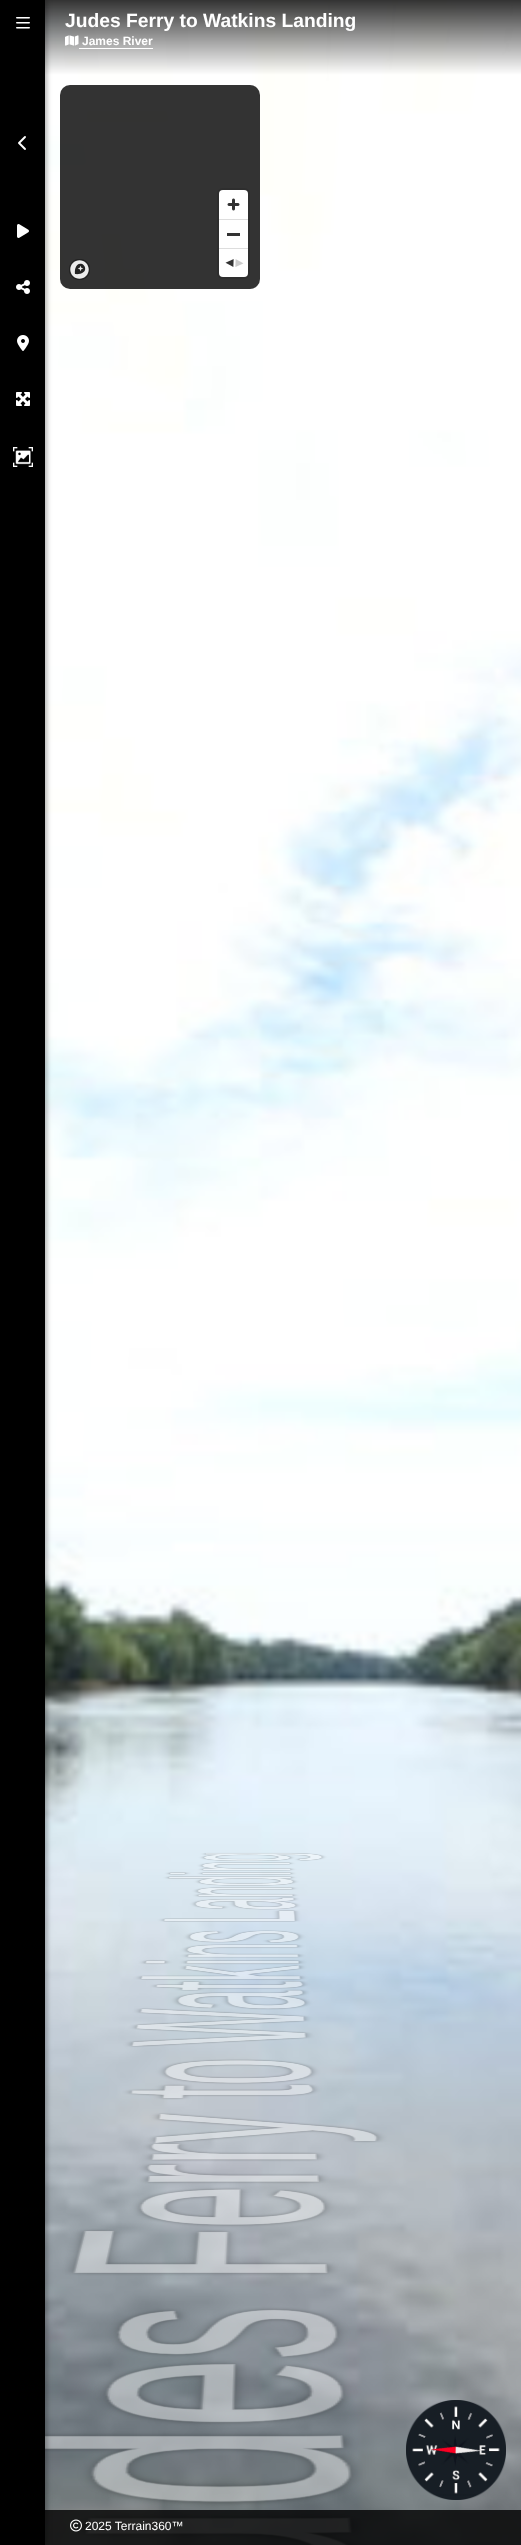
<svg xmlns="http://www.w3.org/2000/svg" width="521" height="2545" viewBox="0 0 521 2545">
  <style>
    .t1 { font: bold 19.25px Liberation Sans; fill: #fff; }
    .t2 { font: bold 12px Liberation Sans; fill: #fff; }
    .t3 { font: 12px Liberation Sans; fill: #fff; }
  </style>
  <rect width="100%" height="100%" fill="#fff"/>
  <image x="45" y="0" width="476" height="2545" href="images/8.png"/>
  <rect x="45" y="2510" width="476" height="35" fill="#000000cc"/>
  <rect x="2" y="0" width="45" height="2545" fill="#0000004d" filter="blur(2.5px)"/>
  <rect x="0" y="0" width="45" height="2545" fill="#000"/>
  <image x="16" y="17" width="14" height="12" href="images/1.png"/>
  <image x="18" y="136" width="8" height="14" href="images/2.png"/>
  <image x="17" y="224" width="12" height="14" href="images/3.png"/>
  <image x="16" y="280" width="14" height="14" href="images/4.png"/>
  <image x="17" y="335" width="12" height="16" href="images/5.png"/>
  <image x="16" y="392" width="14" height="14" href="images/6.png"/>
  <image x="13" y="447" width="20" height="20" href="images/7.png"/>
  <text x="65" y="27" class="t1">Judes Ferry to Watkins Landing</text>
  <image x="65" y="35" width="14" height="11" href="images/9.png"/>
  <text x="82" y="45" class="t2">James River</text>
  <rect x="79" y="48" width="74" height="1" fill="#fff"/>
  <rect x="60" y="85" width="200" height="204" rx="10" fill="#000000cc"/>
  <image x="69" y="259" width="21" height="21" href="images/10.png"/>
  <rect x="218" y="189" width="31" height="89" rx="5" fill="none" stroke="#2e2e2e" stroke-width="2"/>
  <rect x="219" y="190" width="29" height="87" rx="4" fill="#fff"/>
  <image x="227" y="198" width="13" height="13" href="images/11.png"/>
  <rect x="219" y="219" width="29" height="1" fill="#ddd"/>
  <rect x="227" y="233" width="13" height="3" fill="#333"/>
  <rect x="219" y="248" width="29" height="1" fill="#ddd"/>
  <image x="225" y="259" width="19" height="8" href="images/12.png"/>
  <image x="406" y="2400" width="100" height="100" href="images/13.png"/>
  <image x="431" y="2446" width="50" height="8" href="images/14.png"/>
  <image x="70" y="2519" width="12" height="13" href="images/15.png"/>
  <text x="85" y="2530" class="t3">2025 Terrain360™</text>
</svg>
